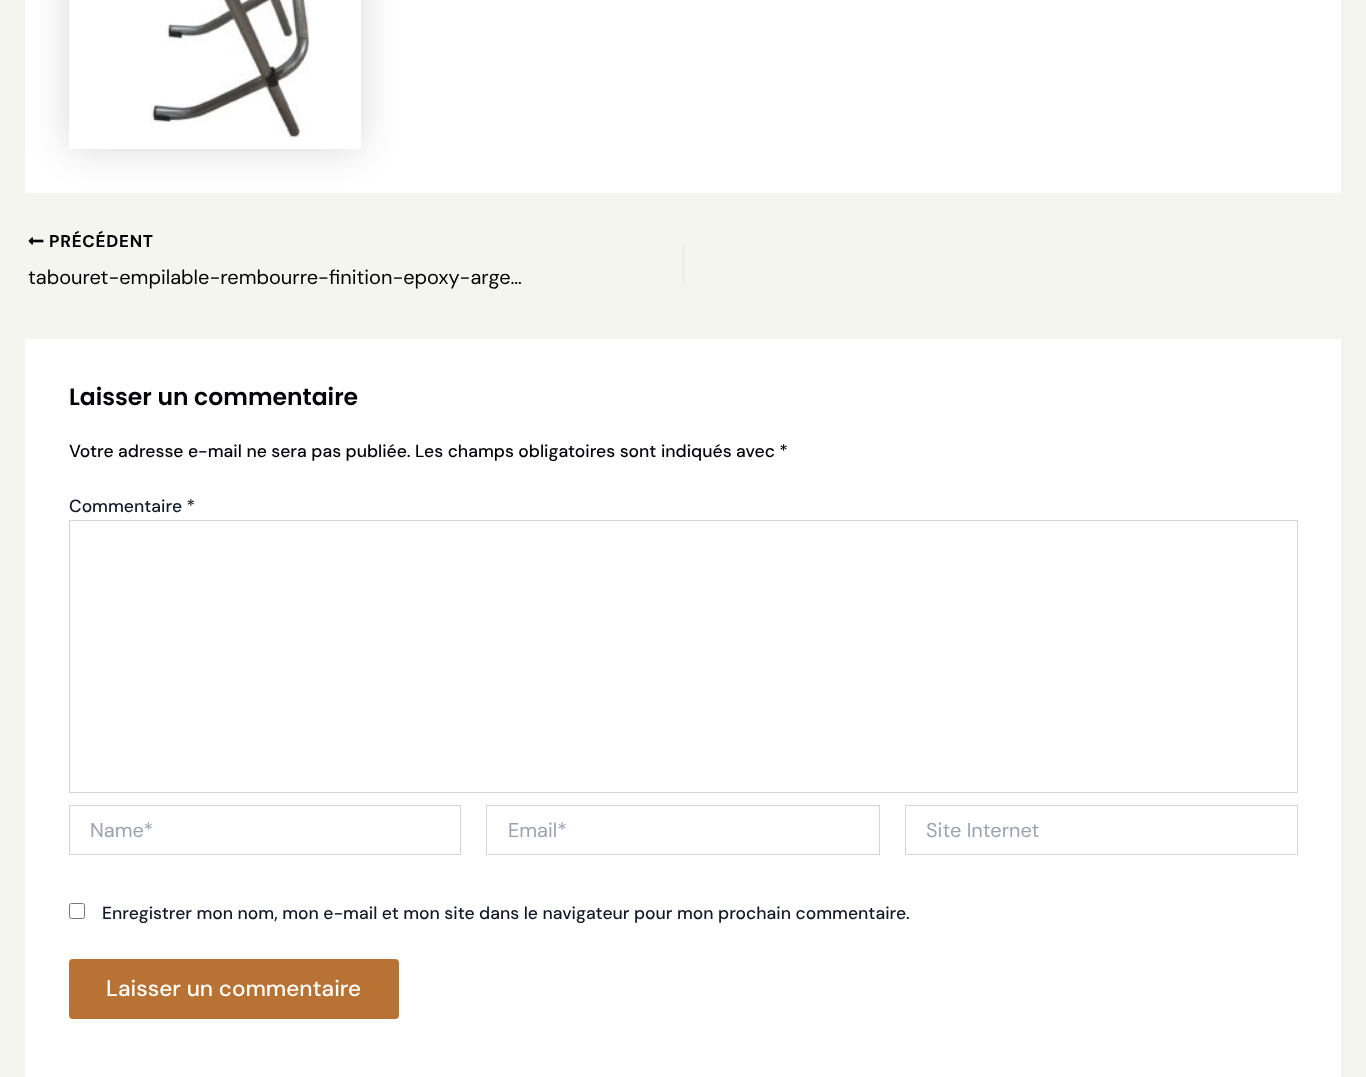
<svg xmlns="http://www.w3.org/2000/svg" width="1366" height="1077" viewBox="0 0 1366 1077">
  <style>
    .t1 { font: bold 17px DM Sans; letter-spacing: 0.75px; fill: #020105; }
    .t2 { font: 20px DM Sans; fill: #020105; }
    .t3 { font: 600 23.5px Poppins; fill: #020105; }
    .t4 { font: 500 17.5px DM Sans; fill: #020105; }
    .t5 { font: 500 17.5px DM Sans; fill: #111827; }
    .t6 { font: 20px DM Sans; fill: #9ca3af; }
    .t7 { font: 500 22.5px DM Sans; fill: #fff; }
  </style>
  <defs>
    <clipPath id="clip1"><path d="M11 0H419V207H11ZM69-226H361V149H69Z" clip-rule="evenodd"/></clipPath>
  </defs>
  <rect width="100%" height="100%" fill="#f5f5f0"/>
  <rect x="25" y="0" width="1316" height="193" fill="#fff"/>
  <g clip-path="url(#clip1)">
    <rect x="69" y="-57" width="292" height="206" fill="#00000026" filter="blur(19px)"/>
  </g>
  <image x="149" y="0" width="161" height="140" href="images/1.png"/>
  <image x="28" y="237" width="16" height="8" href="images/2.png"/>
  <text x="49" y="247" class="t1">PRÉCÉDENT</text>
  <text x="28" y="284" class="t2">tabouret-empilable-rembourre-finition-epoxy-arge…</text>
  <rect x="683" y="246" width="1" height="39" fill="#e1e8ed"/>
  <rect x="25" y="339" width="1316" height="738" fill="#fff"/>
  <text x="69" y="405" class="t3">Laisser un commentaire</text>
  <text x="69" y="457" class="t4">Votre adresse e-mail ne sera pas publiée. Les champs obligatoires sont indiqués avec *</text>
  <text x="69" y="512" class="t5">Commentaire *</text>
  <rect x="69.5" y="520.5" width="1228" height="272" fill="none" stroke="#d1d5db"/>
  <rect x="69.5" y="805.5" width="391" height="49" fill="none" stroke="#d1d5db"/>
  <text x="90" y="837" class="t6">Name*</text>
  <rect x="486.5" y="805.5" width="393" height="49" fill="none" stroke="#d1d5db"/>
  <text x="508" y="837" class="t6">Email*</text>
  <rect x="905.5" y="805.5" width="392" height="49" fill="none" stroke="#d1d5db"/>
  <text x="926" y="837" class="t6">Site Internet</text>
  <rect x="69.5" y="903.5" width="15" height="15" rx="2" fill="none" stroke="#767676"/>
  <text x="102" y="919" class="t5">Enregistrer mon nom, mon e-mail et mon site dans le navigateur pour mon prochain commentaire.</text>
  <rect x="69" y="959" width="330" height="60" rx="4" fill="#b87233"/>
  <text x="106" y="996" class="t7">Laisser un commentaire</text>
</svg>
